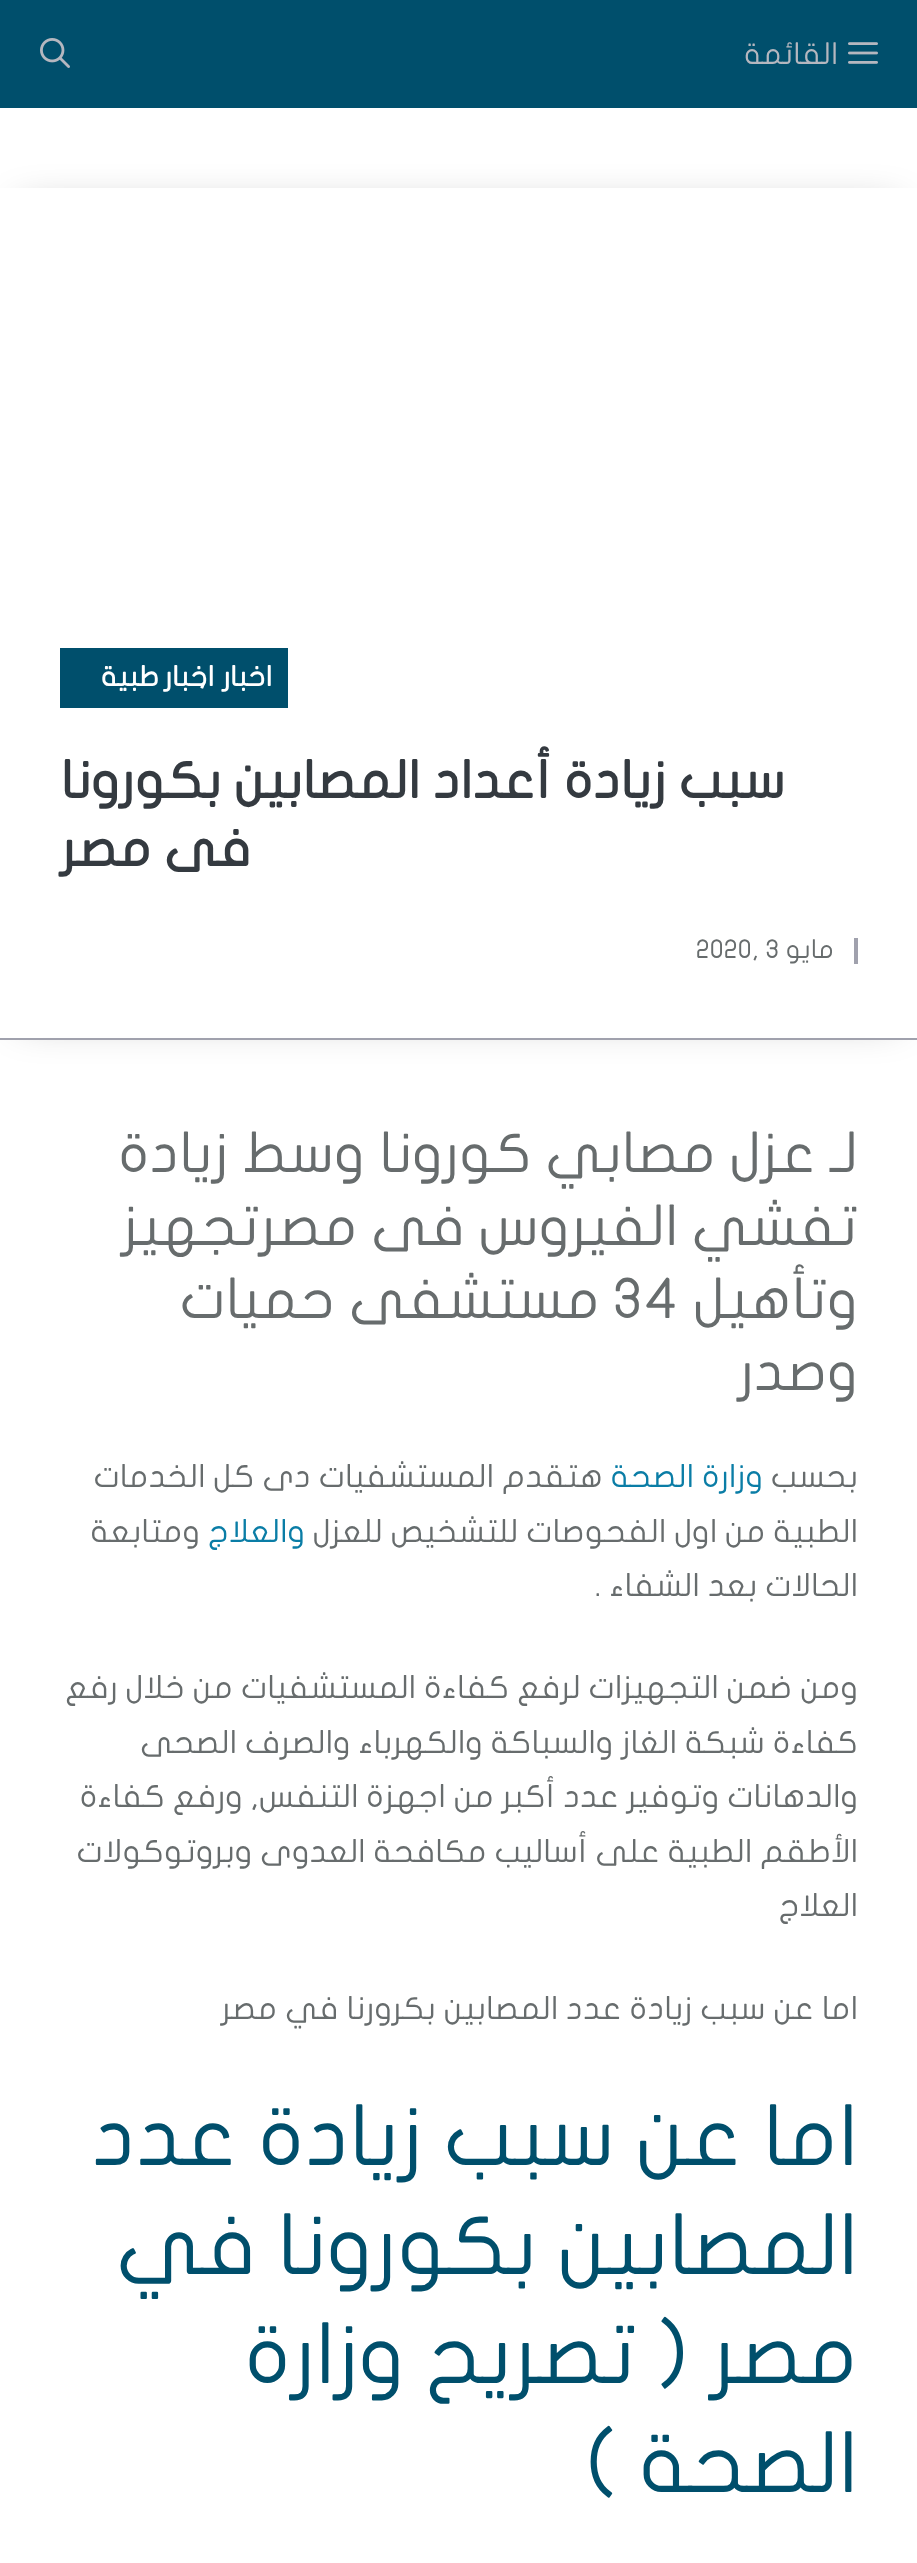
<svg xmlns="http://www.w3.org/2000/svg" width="917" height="2563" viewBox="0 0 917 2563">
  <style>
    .t1 { font: 30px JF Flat; direction: rtl; fill: #b5b7bf; }
    .t2 { font: bold 28px JF Flat; letter-spacing: 1.75px; direction: rtl; fill: #fff; }
    .t3 { font: bold 28px JF Flat; letter-spacing: 1.75px; fill: #fff; }
    .t4 { font: bold 52px JF Flat; direction: rtl; fill: #343a40; }
    .t5 { font: 26px JF Flat; direction: rtl; fill: #676c6d; }
    .t6 { font: 26px JF Flat; fill: #676c6d; }
    .t7 { font: 56px JF Flat; direction: rtl; fill: #676c6d; }
    .t8 { font: 56px JF Flat; fill: #676c6d; }
    .t9 { font: 32px JF Flat; direction: rtl; fill: #676c6d; }
    .t10 { font: 32px JF Flat; direction: rtl; fill: #0a7da6; }
    .t11 { font: 84px JF Flat; direction: rtl; fill: #004f6c; }
  </style>
  <defs>
    <clipPath id="clip1"><path d="M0 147H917V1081H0ZM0 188H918V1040H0Z" clip-rule="evenodd"/></clipPath>
    <clipPath id="clip2"><rect x="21" y="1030" width="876" height="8"/></clipPath>
  </defs>
  <rect width="100%" height="100%" fill="#fff"/>
  <rect x="0" y="0" width="917" height="108" fill="#004f6c"/>
  <image x="848" y="42" width="30" height="22" href="images/1.png"/>
  <text x="838" y="64" class="t1">القائمة</text>
  <image x="40" y="38" width="30" height="30" href="images/2.png"/>
  <g clip-path="url(#clip1)">
    <rect x="20" y="208" width="878" height="812" fill="#0000004d" filter="blur(20px)"/>
  </g>
  <g clip-path="url(#clip2)">
    <rect x="20" y="1060" width="878" height="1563" fill="#0000004d" filter="blur(20px)"/>
  </g>
  <rect x="0" y="1038" width="917" height="2" fill="#a0a1ad"/>
  <rect x="8" y="1024" width="902" height="14" fill="#ffffffe6"/>
  <rect x="60" y="648" width="228" height="60" fill="#004f6c"/>
  <text x="272" y="686" class="t2">اخبار</text>
  <text x="199" y="686" class="t3">,</text>
  <text x="214" y="686" word-spacing="-2" class="t2">اخبار طبية</text>
  <text x="785" y="798" class="t4">سبب زيادة أعداد المصابين بكورونا</text>
  <text x="251" y="866" class="t4">فى مصر</text>
  <rect x="854" y="938" width="4" height="26" fill="#a0a1ad"/>
  <text x="834" y="958" class="t5">مايو</text>
  <text x="696" y="958" class="t6">2020, 3</text>
  <text x="858" y="1172" class="t7">لـ عزل مصابي كورونا</text>
  <text x="365" y="1172" class="t7">وسط زيادة</text>
  <text x="858" y="1245" class="t7">تفشي الفيروس فى مصرتجهيز</text>
  <text x="858" y="1318" class="t7">وتأهيل</text>
  <text x="613" y="1318" class="t8">34</text>
  <text x="600" y="1318" class="t7">مستشفى حميات</text>
  <text x="858" y="1390" class="t7">وصدر</text>
  <text x="858" y="1487" class="t9">بحسب</text>
  <text x="763" y="1487" class="t10">وزارة الصحة</text>
  <text x="603" y="1487" class="t9">هتقدم المستشفيات دى كل الخدمات</text>
  <text x="858" y="1542" class="t9">الطبية من اول الفحوصات للتشخيص للعزل</text>
  <text x="305" y="1542" class="t10">والعلاج</text>
  <text x="200" y="1542" class="t9">ومتابعة</text>
  <text x="858" y="1596" class="t9">الحالات بعد الشفاء .</text>
  <text x="858" y="1698" class="t9">ومن ضمن التجهيزات لرفع كفاءة المستشفيات من خلال رفع</text>
  <text x="858" y="1753" class="t9">كفاءة شبكة الغاز والسباكة والكهرباء والصرف الصحى</text>
  <text x="858" y="1807" class="t9">والدهانات وتوفير عدد أكبر من اجهزة التنفس, ورفع كفاءة</text>
  <text x="858" y="1862" class="t9">الأطقم الطبية على أساليب مكافحة العدوى وبروتوكولات</text>
  <text x="858" y="1916" class="t9">العلاج</text>
  <text x="858" y="2019" class="t9">اما عن سبب زيادة عدد المصابين بكرورنا في مصر</text>
  <text x="858" y="2165" class="t11">اما عن سبب زيادة عدد</text>
  <text x="858" y="2274" class="t11">المصابين بكورونا في</text>
  <text x="858" y="2383" class="t11">مصر ( تصريح وزارة</text>
  <text x="858" y="2492" class="t11">الصحة )</text>
</svg>
